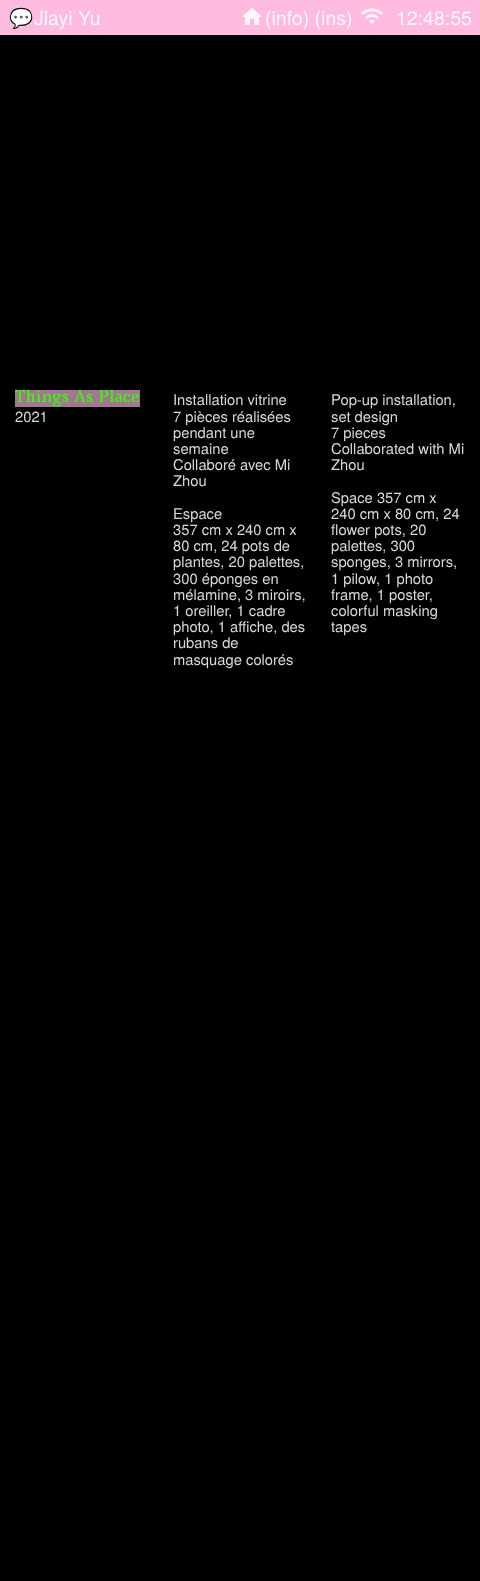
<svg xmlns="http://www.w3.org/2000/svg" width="480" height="1581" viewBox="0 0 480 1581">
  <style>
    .t1 { font: 19.5px Noto Color Emoji; fill: #fff8fc; }
    .t2 { font: 19.5px TeX Gyre Heros; fill: #fff8fc; }
    .t3 { font: bold 14.75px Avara; letter-spacing: 0.5px; fill: #35ff00; }
    .t4 { font: 14.75px TeX Gyre Heros; fill: #d9d9d9; }
  </style>
  <rect width="100%" height="100%" fill="#000"/>
  <rect x="0" y="0" width="480" height="35" fill="#ffbadf"/>
  <text x="9" y="25" class="t1">💬</text>
  <text x="34" y="25" class="t2">Jiayi Yu</text>
  <image x="242" y="8" width="20" height="17" href="images/1.png"/>
  <text x="265" y="25" class="t2">(info) (ins)</text>
  <image x="361" y="8" width="22" height="16" href="images/2.png"/>
  <text x="396" y="25" class="t2">12:48:55</text>
  <rect x="15" y="390" width="125" height="17" fill="#a3778f"/>
  <text x="15" y="402" class="t3">Things As Place</text>
  <text x="15" y="422" class="t4">2021</text>
  <text x="173" y="405" class="t4">Installation vitrine</text>
  <text x="173" y="422" class="t4">7 pièces réalisées</text>
  <text x="173" y="438" class="t4">pendant une</text>
  <text x="173" y="454" class="t4">semaine</text>
  <text x="173" y="470" class="t4">Collaboré avec Mi</text>
  <text x="173" y="486" class="t4">Zhou</text>
  <text x="173" y="519" class="t4">Espace</text>
  <text x="173" y="535" class="t4">357 cm x 240 cm x</text>
  <text x="173" y="551" class="t4">80 cm, 24 pots de</text>
  <text x="173" y="567" class="t4">plantes, 20 palettes,</text>
  <text x="173" y="584" class="t4">300 éponges en</text>
  <text x="173" y="600" class="t4">mélamine, 3 miroirs,</text>
  <text x="173" y="616" class="t4">1 oreiller, 1 cadre</text>
  <text x="173" y="632" class="t4">photo, 1 affiche, des</text>
  <text x="173" y="648" class="t4">rubans de</text>
  <text x="173" y="665" class="t4">masquage colorés</text>
  <text x="331" y="405" class="t4">Pop-up installation,</text>
  <text x="331" y="422" class="t4">set design</text>
  <text x="331" y="438" class="t4">7 pieces</text>
  <text x="331" y="454" class="t4">Collaborated with Mi</text>
  <text x="331" y="470" class="t4">Zhou</text>
  <text x="331" y="503" class="t4">Space 357 cm x</text>
  <text x="331" y="519" class="t4">240 cm x 80 cm, 24</text>
  <text x="331" y="535" class="t4">flower pots, 20</text>
  <text x="331" y="551" class="t4">palettes, 300</text>
  <text x="331" y="567" class="t4">sponges, 3 mirrors,</text>
  <text x="331" y="584" class="t4">1 pilow, 1 photo</text>
  <text x="331" y="600" class="t4">frame, 1 poster,</text>
  <text x="331" y="616" class="t4">colorful masking</text>
  <text x="331" y="632" class="t4">tapes</text>
</svg>
